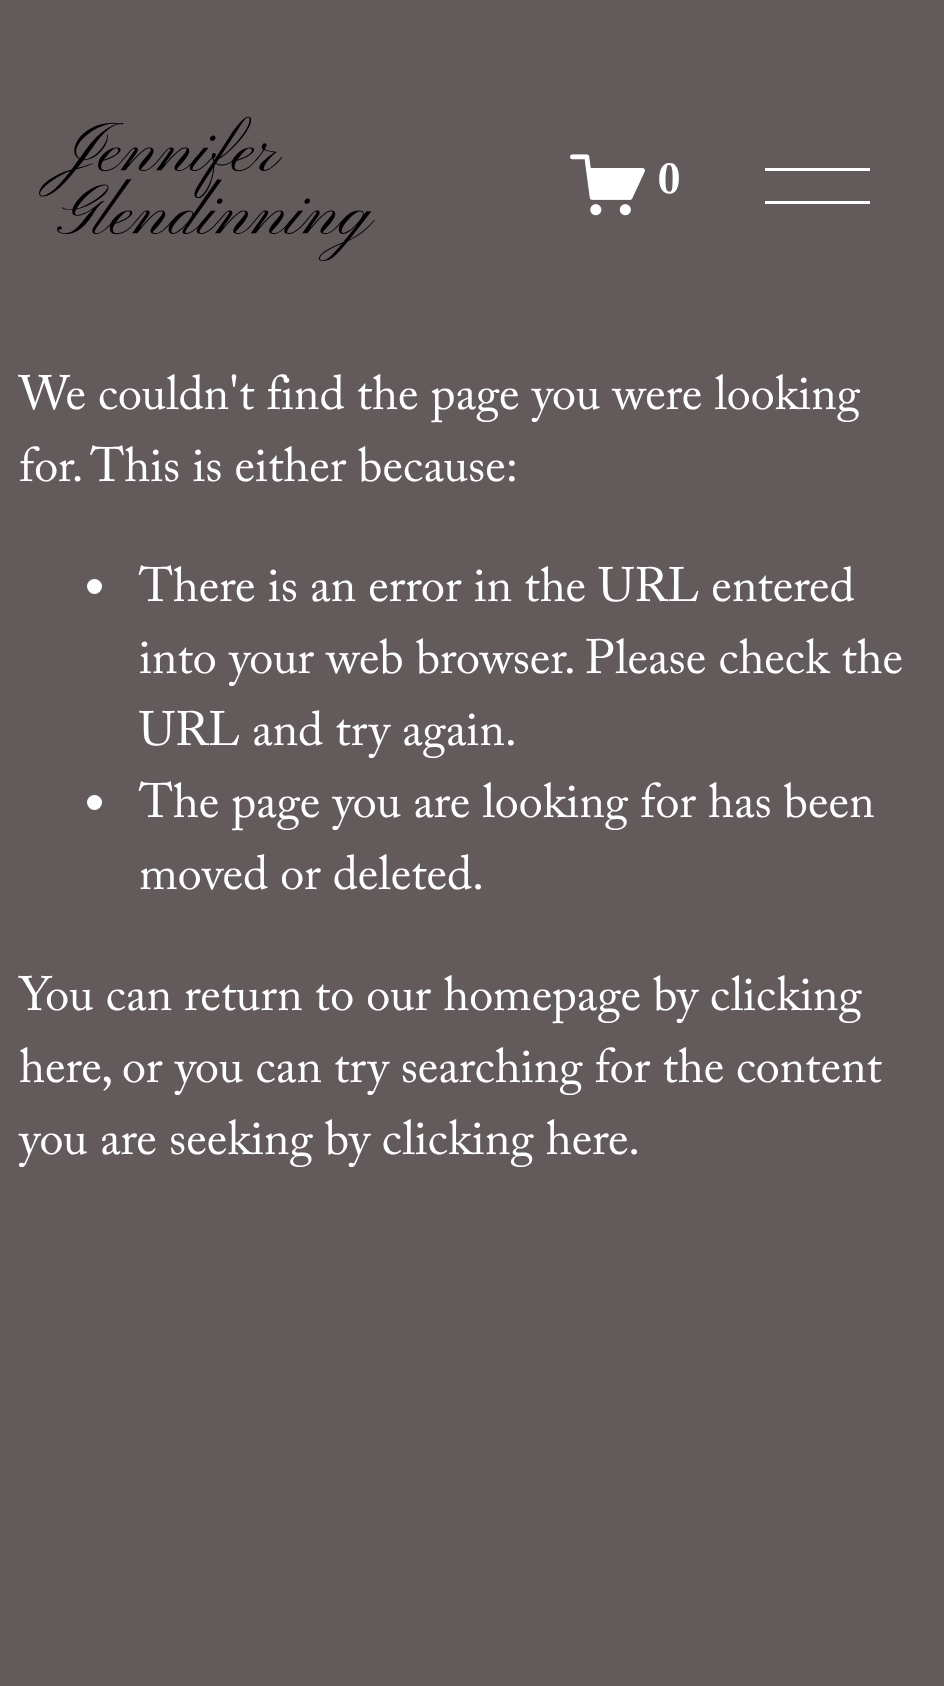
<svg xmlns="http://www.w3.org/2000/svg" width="944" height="1686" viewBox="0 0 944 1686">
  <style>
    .t1 { font: 70.5px Pinyon Script; fill: #000; }
    .t2 { font: bold 44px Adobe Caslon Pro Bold; letter-spacing: 4px; fill: #fff; }
    .t3 { font: 48.1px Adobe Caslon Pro; fill: #fff; }
  </style>
  <rect width="100%" height="100%" fill="#635b5b"/>
  <text x="57" y="171" class="t1">Jennifer</text>
  <text x="57" y="234" class="t1">Glendinning</text>
  <image x="570" y="154" width="75" height="62" href="images/1.png"/>
  <text x="658" y="193" class="t2">0</text>
  <rect x="765" y="168" width="105" height="3" fill="#fff"/>
  <rect x="765" y="201" width="105" height="3" fill="#fff"/>
  <text x="19" y="409" class="t3">We couldn't find the page you were looking</text>
  <text x="19" y="481" class="t3">for. This is either because:</text>
  <circle cx="94.5" cy="586.5" r="7.5" fill="#fff"/>
  <text x="139" y="601" class="t3">There is an error in the URL entered</text>
  <text x="139" y="673" class="t3">into your web browser. Please check the</text>
  <text x="139" y="745" class="t3">URL and try again.</text>
  <circle cx="94.5" cy="802.5" r="7.5" fill="#fff"/>
  <text x="139" y="817" class="t3">The page you are looking for has been</text>
  <text x="139" y="889" class="t3">moved or deleted.</text>
  <text x="19" y="1010" class="t3">You can return to our homepage by clicking</text>
  <text x="19" y="1082" class="t3">here</text>
  <text x="101" y="1082" class="t3">, or you can try searching for the</text>
  <text x="736" y="1082" class="t3">content</text>
  <text x="19" y="1154" class="t3">you are seeking by clicking here</text>
  <text x="628" y="1154" class="t3">.</text>
</svg>
